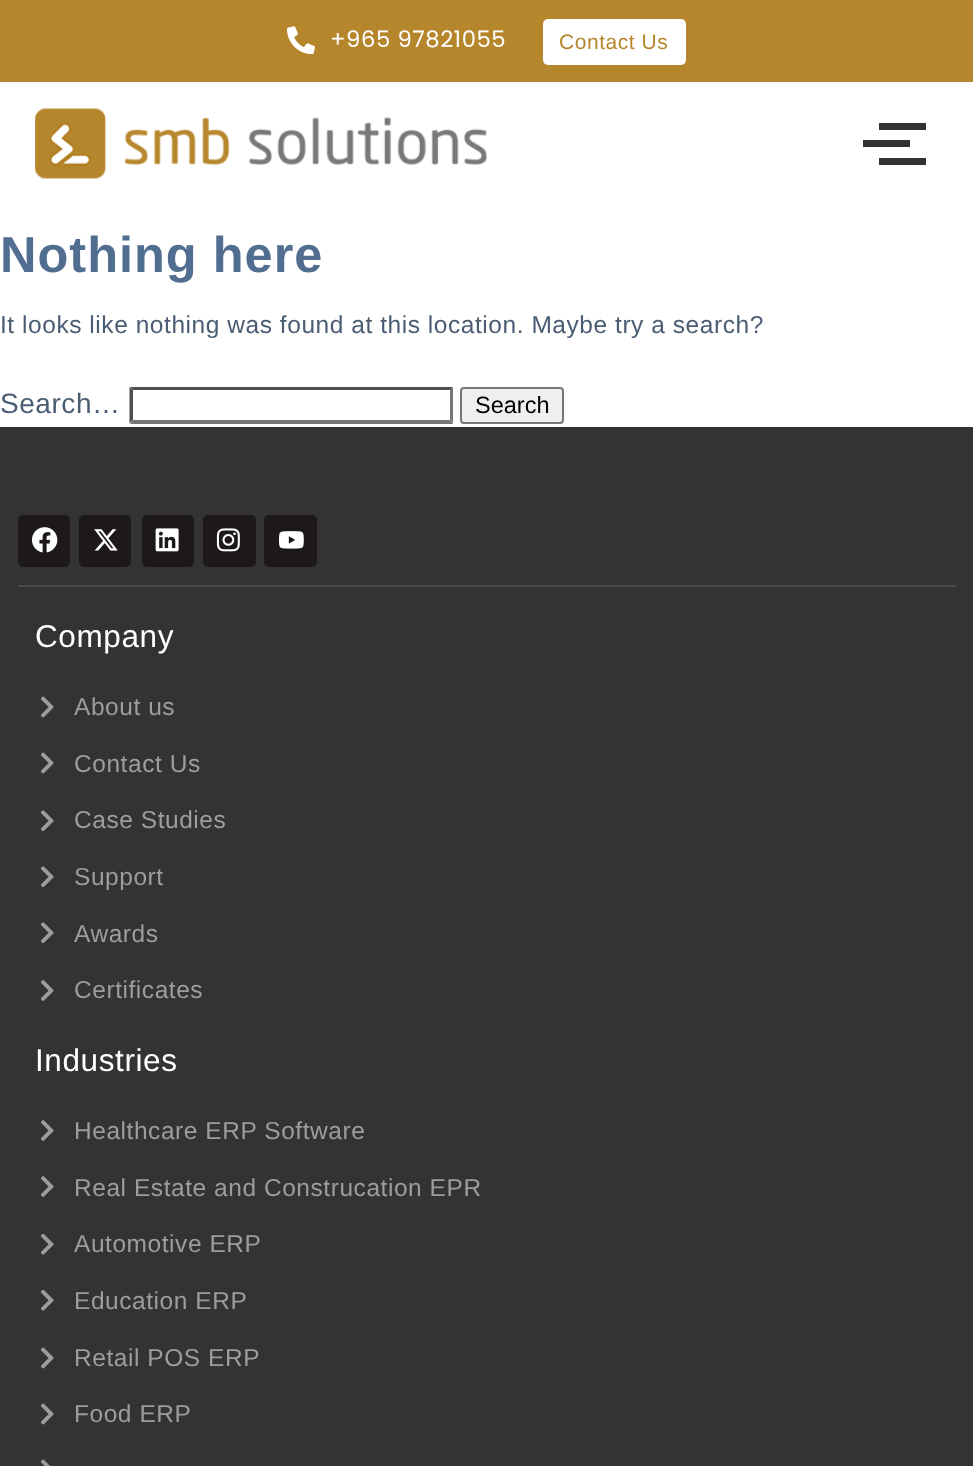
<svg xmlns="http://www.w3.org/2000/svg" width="973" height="1466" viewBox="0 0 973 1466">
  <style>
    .t1 { font: 22.75px Poppins; letter-spacing: 0.55px; fill: #fff; }
    .t2 { font: 21px Liberation Sans; letter-spacing: 0.55px; fill: #b6862d; }
    .t3 { font: bold 50.5px Liberation Sans; letter-spacing: 1px; fill: #516e90; }
    .t4 { font: 24.5px Liberation Sans; letter-spacing: 0.55px; fill: #4b5d73; }
    .t5 { font: 28px Liberation Sans; letter-spacing: 0.55px; fill: #4b5d73; }
    .t6 { font: 23.5px Liberation Sans; fill: #000; }
    .t7 { font: 31.5px Liberation Sans; letter-spacing: 0.6px; fill: #fff; }
    .t8 { font: 24.5px Liberation Sans; letter-spacing: 0.55px; fill: #9d9d9d; }
  </style>
  <rect width="100%" height="100%" fill="#fff"/>
  <rect x="0" y="0" width="973" height="82" fill="#b6862d"/>
  <image x="287" y="26" width="28" height="28" href="images/1.png"/>
  <text x="330" y="47" class="t1">+965 97821055</text>
  <rect x="543" y="19" width="143" height="46" rx="5" fill="#fff"/>
  <text x="559" y="49" class="t2">Contact Us</text>
  <image x="35" y="108" width="452" height="71" href="images/2.png"/>
  <rect x="879" y="123" width="47" height="7" fill="#333"/>
  <rect x="863" y="140" width="47" height="7" fill="#333"/>
  <rect x="879" y="158" width="47" height="7" fill="#333"/>
  <text x="0" y="272" class="t3">Nothing here</text>
  <text x="0" y="333" class="t4">It looks like nothing was found at this location. Maybe try a search?</text>
  <text x="0" y="413" class="t5">Search…</text>
  <path d="M130 387H453L450 390H133Z" fill="#4f4f4f"/>
  <path d="M453 387V423.5L450 420V390Z" fill="#767676"/>
  <path d="M453 424H130L133 420H450Z" fill="#767676"/>
  <path d="M129.5 423.5V387L133 390V420Z" fill="#4f4f4f"/>
  <rect x="461" y="388" width="102" height="35" rx="3" fill="#efefef" stroke="#767676" stroke-width="2"/>
  <text x="475" y="413" class="t6">Search</text>
  <rect x="0" y="427" width="973" height="1039" fill="#333"/>
  <rect x="18" y="585" width="938" height="2" fill="#494949"/>
  <rect x="18" y="515" width="52" height="52" rx="5" fill="#1d1919"/>
  <image x="32" y="527" width="26" height="26" href="images/3.png"/>
  <rect x="79" y="515" width="52" height="52" rx="5" fill="#1d1919"/>
  <image x="94" y="529" width="24" height="22" href="images/4.png"/>
  <rect x="142" y="515" width="52" height="52" rx="5" fill="#1d1919"/>
  <image x="155" y="528" width="24" height="24" href="images/5.png"/>
  <rect x="203" y="515" width="53" height="52" rx="5" fill="#1d1919"/>
  <image x="216" y="528" width="24" height="24" href="images/6.png"/>
  <rect x="264" y="515" width="53" height="52" rx="5" fill="#1d1919"/>
  <image x="278" y="531" width="26" height="18" href="images/7.png"/>
  <text x="35" y="647" class="t7">Company</text>
  <image x="41" y="696" width="13" height="22" href="images/8.png"/>
  <text x="74" y="715" class="t8">About us</text>
  <image x="41" y="752" width="13" height="22" href="images/8.png"/>
  <text x="74" y="772" class="t8">Contact Us</text>
  <image x="40" y="810" width="14" height="22" href="images/9.png"/>
  <text x="74" y="828" class="t8">Case Studies</text>
  <image x="40" y="866" width="14" height="22" href="images/9.png"/>
  <text x="74" y="885" class="t8">Support</text>
  <image x="40" y="922" width="14" height="22" href="images/9.png"/>
  <text x="74" y="942" class="t8">Awards</text>
  <image x="40" y="980" width="14" height="21" href="images/10.png"/>
  <text x="74" y="998" class="t8">Certificates</text>
  <text x="35" y="1071" class="t7">Industries</text>
  <image x="40" y="1120" width="14" height="21" href="images/10.png"/>
  <text x="74" y="1139" class="t8">Healthcare ERP Software</text>
  <image x="40" y="1176" width="14" height="21" href="images/10.png"/>
  <text x="74" y="1196" class="t8">Real Estate and Construcation EPR</text>
  <image x="40" y="1233" width="14" height="22" href="images/11.png"/>
  <text x="74" y="1252" class="t8">Automotive ERP</text>
  <image x="40" y="1289" width="14" height="22" href="images/11.png"/>
  <text x="74" y="1309" class="t8">Education ERP</text>
  <image x="41" y="1347" width="13" height="22" href="images/8.png"/>
  <text x="74" y="1366" class="t8">Retail POS ERP</text>
  <image x="41" y="1403" width="13" height="22" href="images/8.png"/>
  <text x="74" y="1422" class="t8">Food ERP</text>
  <image x="41" y="1459" width="9" height="7" href="images/12.png"/>
</svg>
